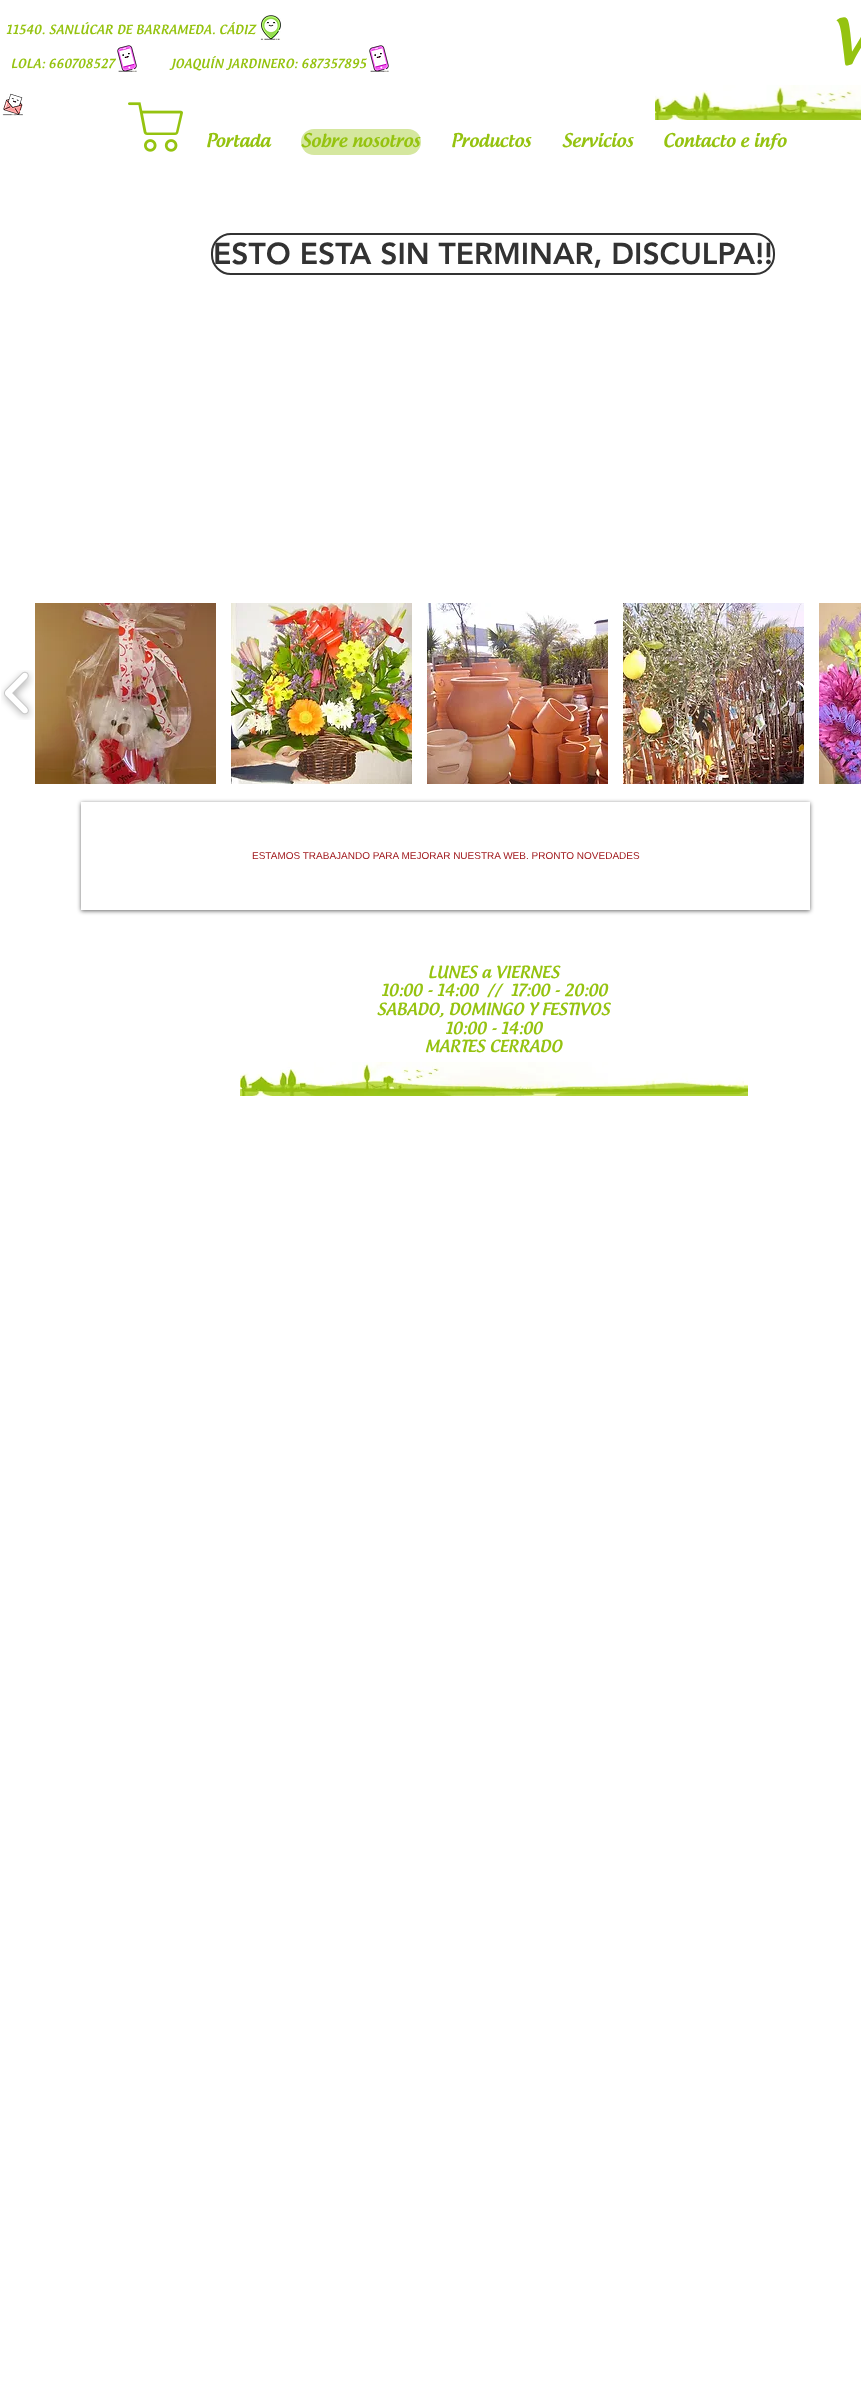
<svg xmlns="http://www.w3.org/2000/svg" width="861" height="2400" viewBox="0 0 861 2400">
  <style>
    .t1 { font: 500 12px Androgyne; letter-spacing: 0.35px; fill: #95c310; }
    .t2 { font: 500 60px Androgyne; fill: #95c310; }
    .t3 { font: 500 18px Androgyne; fill: #95c310; }
    .t4 { font: 900 30px 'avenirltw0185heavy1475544'; fill: #323232; }
    .t5 { font: 10px Liberation Sans; fill: #9e1317; }
    .t6 { font: 500 16px Androgyne; fill: #95c310; }
  </style>
  <defs>
    <clipPath id="clip1"><path d="M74 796H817V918H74ZM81 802H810V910H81Z" clip-rule="evenodd"/></clipPath>
  </defs>
  <rect width="100%" height="100%" fill="#fff"/>
  <text x="6" y="34" class="t1">11540. SANLÚCAR DE BARRAMEDA. CÁDIZ</text>
  <image x="260" y="15" width="21" height="25" href="images/1.png"/>
  <text x="831" y="64" class="t2">V</text>
  <text x="11" y="68" class="t1">LOLA: 660708527</text>
  <image x="117" y="45" width="20" height="27" href="images/2.png"/>
  <text x="171" y="68" class="t1">JOAQUÍN JARDINERO: 687357895</text>
  <image x="369" y="45" width="20" height="27" href="images/2.png"/>
  <image x="2" y="93" width="21" height="23" href="images/3.png"/>
  <image x="128" y="102" width="55" height="50" href="images/4.png"/>
  <image x="655" y="85" width="206" height="35" href="images/5.png"/>
  <text x="206" y="147" class="t3">Portada</text>
  <rect x="301" y="129" width="120" height="26" rx="13" fill="#d5e79f"/>
  <text x="301" y="147" class="t3">Sobre nosotros</text>
  <text x="451" y="147" class="t3">Productos</text>
  <text x="562" y="147" class="t3">Servicios</text>
  <text x="663" y="147" class="t3">Contacto e info</text>
  <rect x="212" y="234" width="562" height="40" rx="19" fill="none" stroke="#323232" stroke-width="2"/>
  <text x="213" y="264" class="t4">ESTO ESTA SIN TERMINAR, DISCULPA!!</text>
  <image x="1" y="670" width="33" height="50" href="images/6.png"/>
  <image x="35" y="603" width="181" height="181" href="images/7.png"/>
  <image x="231" y="603" width="181" height="181" href="images/8.png"/>
  <image x="427" y="603" width="181" height="181" href="images/9.png"/>
  <image x="623" y="603" width="181" height="181" href="images/10.png"/>
  <image x="819" y="603" width="42" height="181" href="images/11.png"/>
  <g clip-path="url(#clip1)">
    <rect x="81" y="803" width="729" height="108" fill="#00000099" filter="blur(2px)"/>
  </g>
  <text x="252" y="859" class="t5">ESTAMOS TRABAJANDO PARA MEJORAR NUESTRA WEB. PRONTO NOVEDADES</text>
  <text x="428" y="978" class="t6">LUNES a VIERNES</text>
  <text x="381" y="996" class="t6" xml:space="preserve">10:00 - 14:00  //  17:00 - 20:00</text>
  <text x="377" y="1015" class="t6">SABADO, DOMINGO Y FESTIVOS</text>
  <text x="445" y="1034" class="t6">10:00 - 14:00</text>
  <text x="425" y="1052" class="t6">MARTES CERRADO</text>
  <image x="240" y="1062" width="508" height="34" href="images/12.png"/>
</svg>
